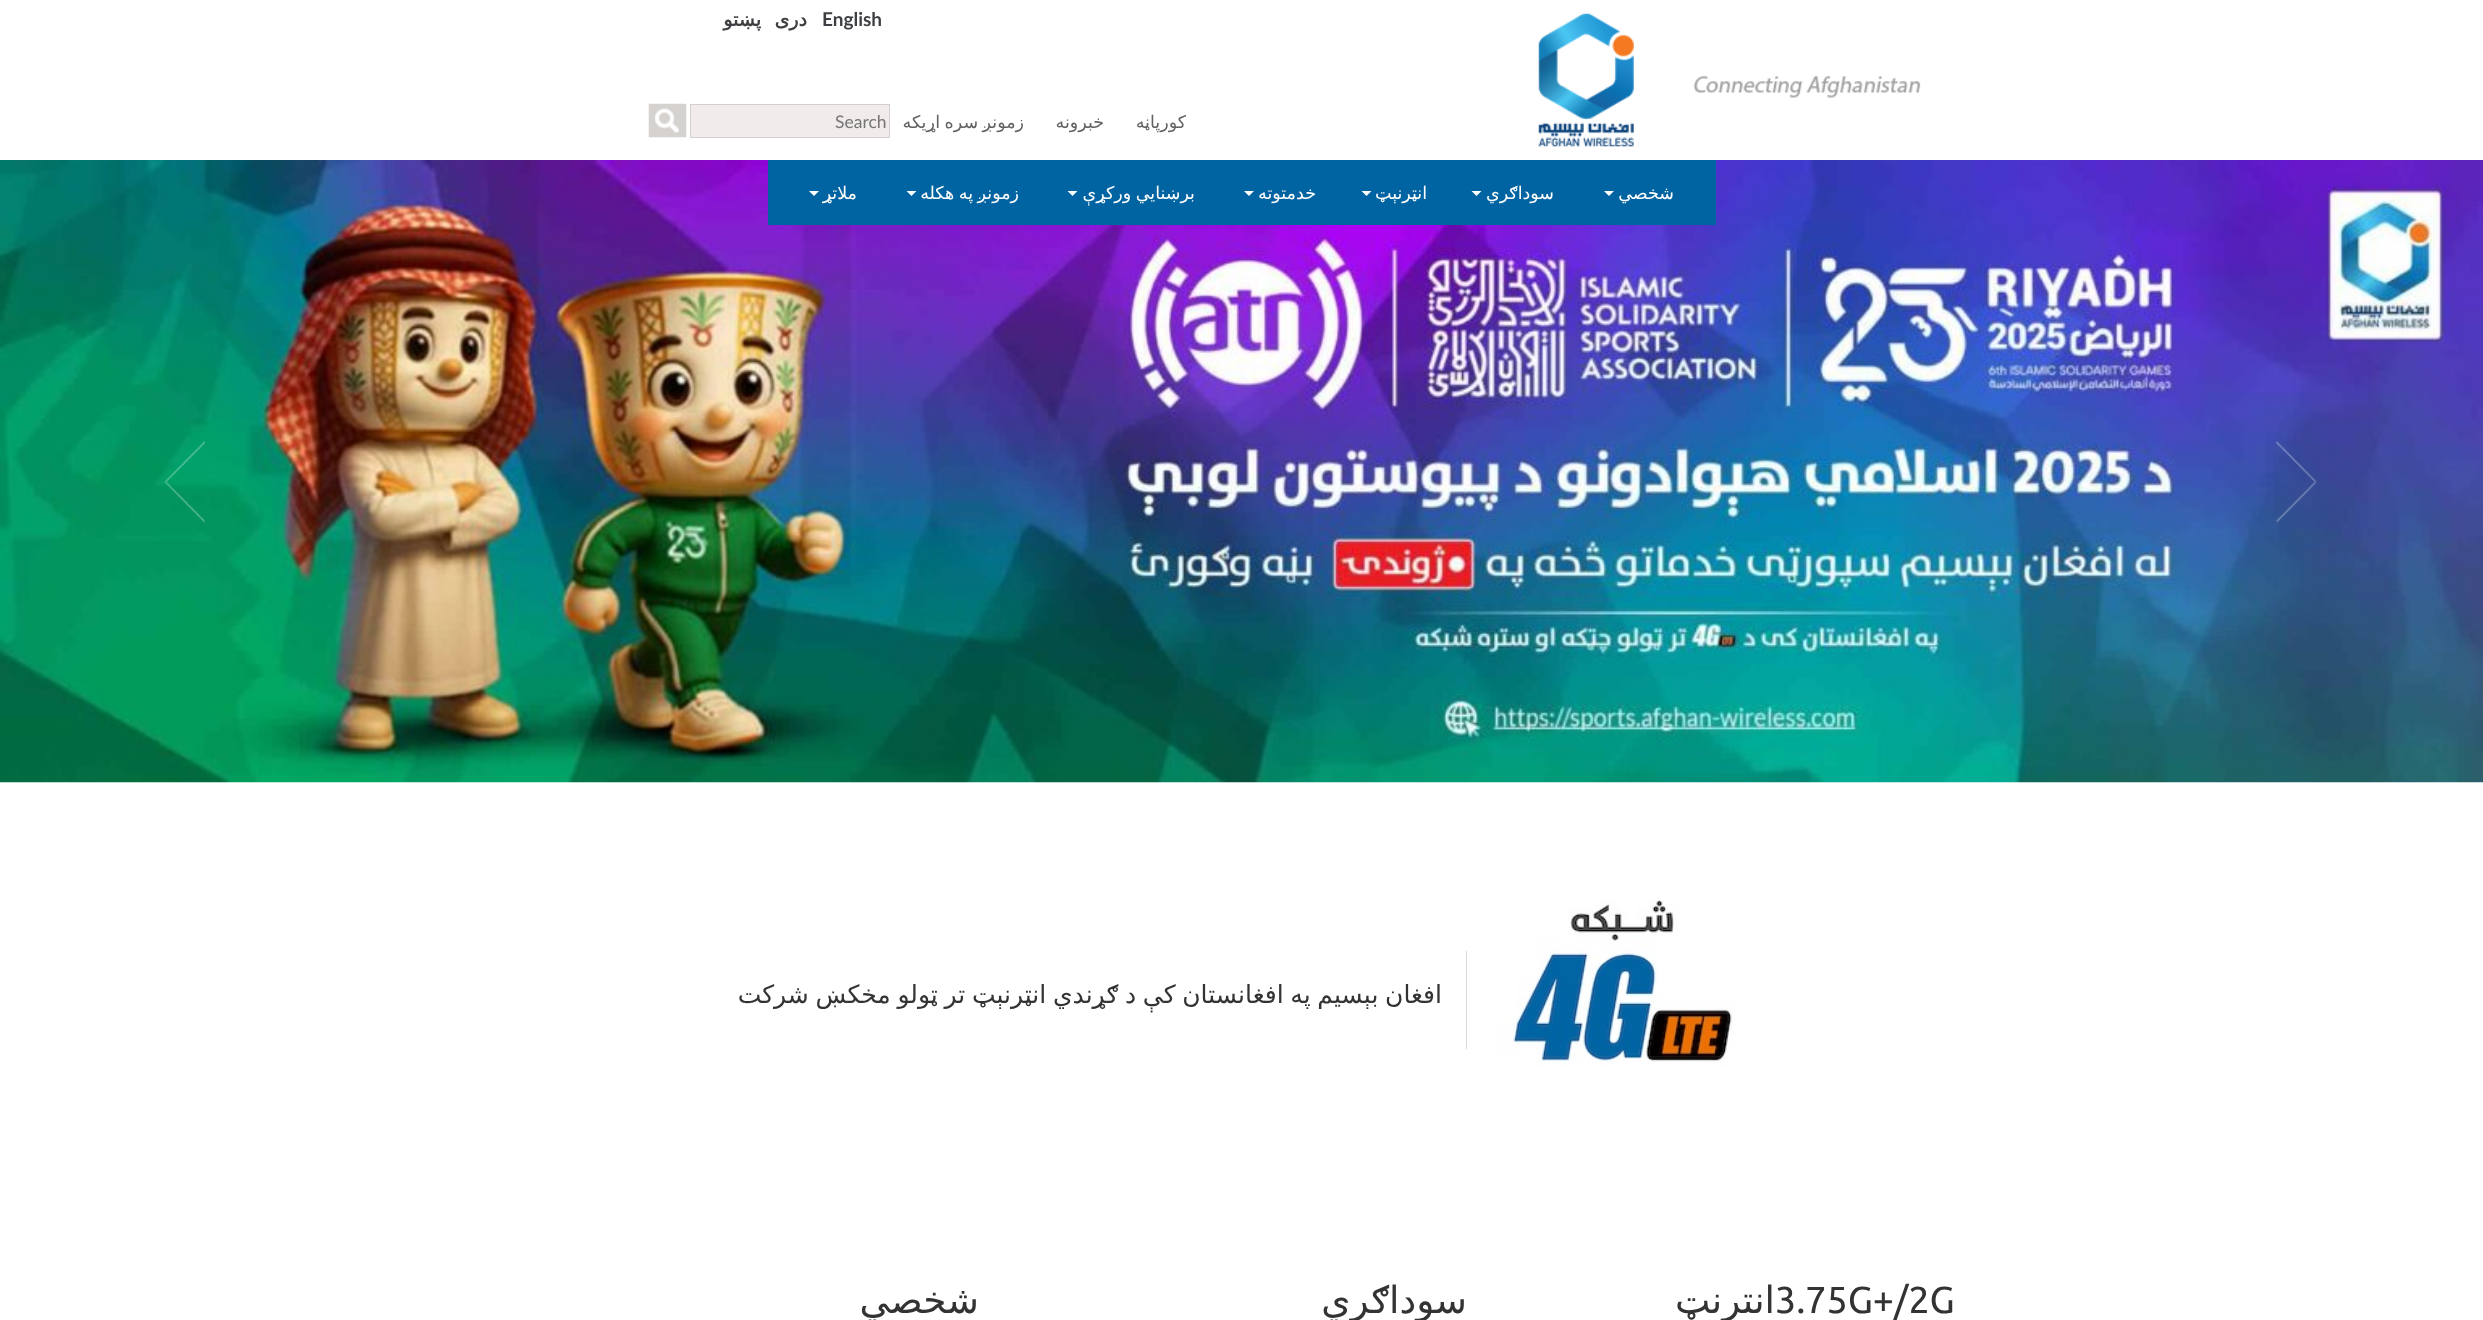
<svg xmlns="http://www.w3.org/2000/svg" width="2483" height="1320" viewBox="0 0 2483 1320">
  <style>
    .t1 { font: 17.5px DejaVu Sans; direction: rtl; fill: #606264; }
    .t2 { font: 17.5px Lato; fill: #757575; }
    .t3 { font: bold 19px Lato; fill: #3d3f42; }
    .t4 { font: bold 19px DejaVu Sans; direction: rtl; fill: #3d3f42; }
    .t5 { font: 17.5px DejaVu Sans; direction: rtl; fill: #fff; }
    .t6 { font: 25px DejaVu Sans; direction: rtl; fill: #333; }
    .t7 { font: 37.5px Ubuntu; fill: #333; }
    .t8 { font: 37.5px DejaVu Sans; direction: rtl; fill: #333; }
  </style>
  <rect width="100%" height="100%" fill="#fff"/>
  <image x="1538" y="13" width="383" height="134" href="images/1.png"/>
  <text x="1186" y="128" class="t1">کورپاڼه</text>
  <text x="1104" y="128" class="t1">خبرونه</text>
  <text x="1024" y="128" word-spacing="-1" class="t1">زمونږ سره اړیکه</text>
  <rect x="690.5" y="104.5" width="199" height="33" fill="#f1ebeb" stroke="#d5d0d0"/>
  <text x="835" y="128" class="t2">Search</text>
  <image x="648" y="103" width="39" height="35" href="images/2.png"/>
  <text x="822" y="26" class="t3">English</text>
  <text x="807" y="26" class="t4">دری</text>
  <text x="761" y="26" class="t4">پښتو</text>
  <image x="0" y="160" width="2483" height="623" href="images/3.png"/>
  <image x="2276" y="441" width="41" height="82" href="images/4.png"/>
  <image x="165" y="441" width="40" height="82" href="images/5.png"/>
  <rect x="768" y="160" width="948" height="65" fill="#0064a2"/>
  <text x="1674" y="199" class="t5">شخصي</text>
  <path d="M1604 191H1614L1609 196Z" fill="#fff"/>
  <text x="1554" y="199" class="t5">سوداګري</text>
  <path d="M1471.5 191H1481.5L1476.5 196Z" fill="#fff"/>
  <text x="1427" y="199" class="t5">انټرنېټ</text>
  <path d="M1361.5 191H1371.5L1366.5 196Z" fill="#fff"/>
  <text x="1316" y="199" class="t5">خدمتوته</text>
  <path d="M1244 191H1254L1249 196Z" fill="#fff"/>
  <text x="1195" y="199" word-spacing="-1" class="t5">برښنایي ورکړې</text>
  <path d="M1067.5 191H1077.5L1072.5 196Z" fill="#fff"/>
  <text x="1019" y="199" word-spacing="-1" class="t5">زمونږ په هکله</text>
  <path d="M906.5 191H916.5L911.5 196Z" fill="#fff"/>
  <text x="857" y="199" class="t5">ملاتړ</text>
  <path d="M809 191H819L814 196Z" fill="#fff"/>
  <image x="1497" y="900" width="238" height="166" href="images/6.png"/>
  <rect x="1466" y="951" width="1" height="98" fill="#d8d8d9"/>
  <text x="1442" y="1003" word-spacing="-1.25" class="t6">افغان بېسیم په افغانستان کې د ګړندي انټرنېټ تر ټولو مخکښ شرکت</text>
  <text x="1775" y="1313" class="t7">3.75G+/2G</text>
  <text x="1775" y="1313" class="t8">انترنټ</text>
  <text x="1467" y="1313" class="t8">سوداګري</text>
  <text x="979" y="1313" class="t8">شخصي</text>
</svg>
